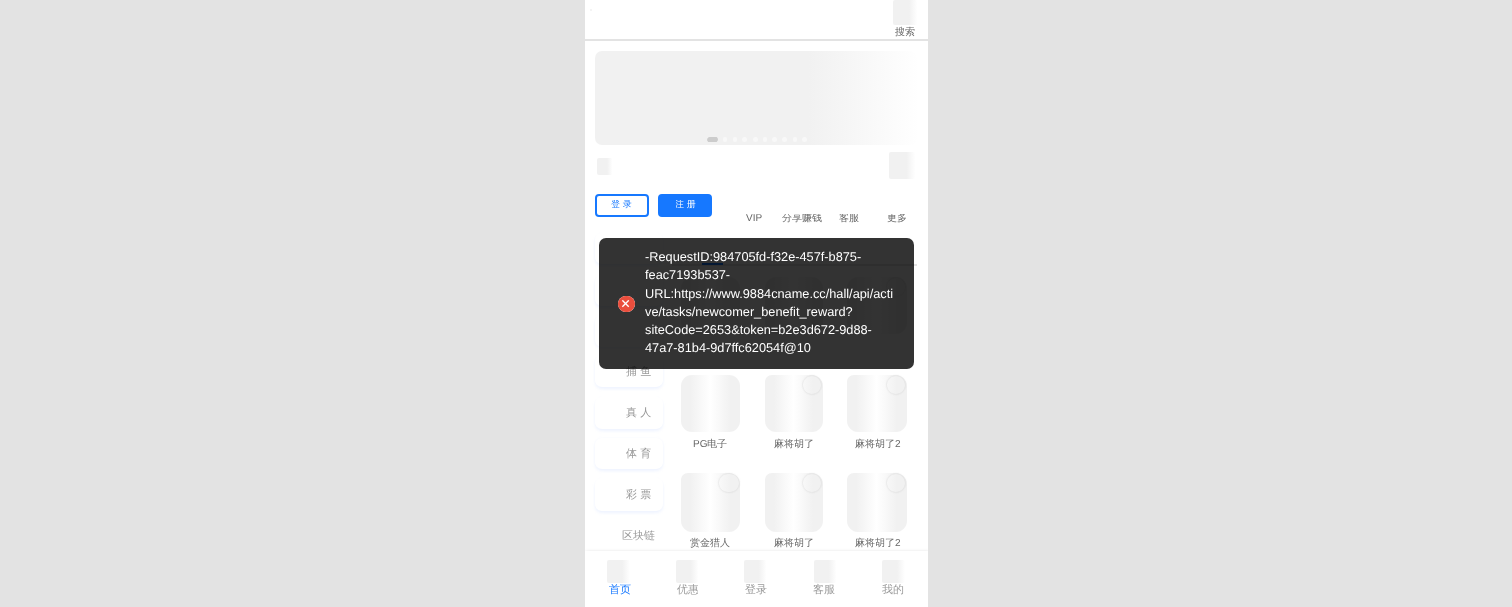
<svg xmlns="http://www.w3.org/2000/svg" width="1512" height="607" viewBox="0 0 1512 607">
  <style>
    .t1 { font: 500 10px WenQuanYi Zen Hei; fill: #666; }
    .t2 { font: 500 9px WenQuanYi Zen Hei; fill: #1678ff; }
    .t3 { font: 500 9px WenQuanYi Zen Hei; fill: #fff; }
    .t4 { font: 10px Liberation Sans; fill: #666; }
    .t5 { font: 500 11px WenQuanYi Zen Hei; fill: #999; }
    .t6 { font: 500 11px WenQuanYi Zen Hei; fill: #1678ff; }
    .t7 { font: 12.75px Liberation Sans; fill: #fff; }
  </style>
  <defs>
    <linearGradient id="g1" gradientUnits="userSpaceOnUse" x1="893" y1="12" x2="942" y2="12"><stop offset="0" stop-color="#f1f1f1"/><stop offset="0.33" stop-color="#f1f1f1"/><stop offset="0.5" stop-color="#fff"/><stop offset="0.67" stop-color="#f1f1f1"/><stop offset="1" stop-color="#f1f1f1"/></linearGradient>
    <linearGradient id="g2" gradientUnits="userSpaceOnUse" x1="595" y1="98" x2="1243" y2="98"><stop offset="0" stop-color="#f1f1f1"/><stop offset="0.33" stop-color="#f1f1f1"/><stop offset="0.5" stop-color="#fff"/><stop offset="0.67" stop-color="#f1f1f1"/><stop offset="1" stop-color="#f1f1f1"/></linearGradient>
    <linearGradient id="g3" gradientUnits="userSpaceOnUse" x1="597" y1="166" x2="628" y2="166"><stop offset="0" stop-color="#f1f1f1"/><stop offset="0.33" stop-color="#f1f1f1"/><stop offset="0.5" stop-color="#fff"/><stop offset="0.67" stop-color="#f1f1f1"/><stop offset="1" stop-color="#f1f1f1"/></linearGradient>
    <linearGradient id="g4" gradientUnits="userSpaceOnUse" x1="889" y1="165" x2="942" y2="165"><stop offset="0" stop-color="#f1f1f1"/><stop offset="0.33" stop-color="#f1f1f1"/><stop offset="0.5" stop-color="#fff"/><stop offset="0.67" stop-color="#f1f1f1"/><stop offset="1" stop-color="#f1f1f1"/></linearGradient>
    <clipPath id="clip1"><rect x="611" y="200" width="21" height="10"/></clipPath>
    <clipPath id="clip2"><rect x="676" y="200" width="21" height="10"/></clipPath>
    <clipPath id="clip3"><rect x="779" y="214" width="45" height="10"/></clipPath>
    <clipPath id="clip4"><rect x="826" y="214" width="46" height="10"/></clipPath>
    <clipPath id="clip5"><rect x="875" y="214" width="46" height="10"/></clipPath>
    <clipPath id="clip6"><path d="M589 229H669V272H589ZM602 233H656C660 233 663 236 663 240V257C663 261 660 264 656 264H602C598 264 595 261 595 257V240C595 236 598 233 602 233Z" clip-rule="evenodd"/></clipPath>
    <clipPath id="clip7"><path d="M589 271H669V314H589ZM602 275H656C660 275 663 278 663 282V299C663 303 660 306 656 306H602C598 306 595 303 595 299V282C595 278 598 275 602 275Z" clip-rule="evenodd"/></clipPath>
    <clipPath id="clip8"><path d="M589 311H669V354H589ZM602 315H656C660 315 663 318 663 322V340C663 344 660 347 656 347H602C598 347 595 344 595 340V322C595 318 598 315 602 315Z" clip-rule="evenodd"/></clipPath>
    <clipPath id="clip9"><path d="M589 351H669V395H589ZM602 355H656C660 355 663 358 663 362V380C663 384 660 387 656 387H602C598 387 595 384 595 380V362C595 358 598 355 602 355Z" clip-rule="evenodd"/></clipPath>
    <clipPath id="clip10"><path d="M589 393H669V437H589ZM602 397H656C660 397 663 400 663 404V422C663 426 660 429 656 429H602C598 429 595 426 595 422V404C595 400 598 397 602 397Z" clip-rule="evenodd"/></clipPath>
    <clipPath id="clip11"><path d="M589 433H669V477H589ZM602 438H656C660 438 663 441 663 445V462C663 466 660 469 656 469H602C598 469 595 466 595 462V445C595 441 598 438 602 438Z" clip-rule="evenodd"/></clipPath>
    <clipPath id="clip12"><path d="M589 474H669V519H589ZM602 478H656C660 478 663 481 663 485V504C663 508 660 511 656 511H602C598 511 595 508 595 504V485C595 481 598 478 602 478Z" clip-rule="evenodd"/></clipPath>
    <linearGradient id="g5" gradientUnits="userSpaceOnUse" x1="651" y1="305" x2="770" y2="305"><stop offset="0" stop-color="#f1f1f1"/><stop offset="0.33" stop-color="#f1f1f1"/><stop offset="0.5" stop-color="#fff"/><stop offset="0.67" stop-color="#f1f1f1"/><stop offset="1" stop-color="#f1f1f1"/></linearGradient>
    <linearGradient id="g6" gradientUnits="userSpaceOnUse" x1="736" y1="305" x2="851" y2="305"><stop offset="0" stop-color="#f1f1f1"/><stop offset="0.33" stop-color="#f1f1f1"/><stop offset="0.5" stop-color="#fff"/><stop offset="0.67" stop-color="#f1f1f1"/><stop offset="1" stop-color="#f1f1f1"/></linearGradient>
    <linearGradient id="g7" gradientUnits="userSpaceOnUse" x1="817" y1="305" x2="936" y2="305"><stop offset="0" stop-color="#f1f1f1"/><stop offset="0.33" stop-color="#f1f1f1"/><stop offset="0.5" stop-color="#fff"/><stop offset="0.67" stop-color="#f1f1f1"/><stop offset="1" stop-color="#f1f1f1"/></linearGradient>
    <clipPath id="clip13"><path d="M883 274H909V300H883ZM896 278C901 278 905 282 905 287C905 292 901 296 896 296C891 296 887 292 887 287C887 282 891 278 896 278Z" clip-rule="evenodd"/></clipPath>
    <linearGradient id="g8" gradientUnits="userSpaceOnUse" x1="651" y1="403" x2="770" y2="403"><stop offset="0" stop-color="#f1f1f1"/><stop offset="0.33" stop-color="#f1f1f1"/><stop offset="0.5" stop-color="#fff"/><stop offset="0.67" stop-color="#f1f1f1"/><stop offset="1" stop-color="#f1f1f1"/></linearGradient>
    <linearGradient id="g9" gradientUnits="userSpaceOnUse" x1="736" y1="403" x2="851" y2="403"><stop offset="0" stop-color="#f1f1f1"/><stop offset="0.33" stop-color="#f1f1f1"/><stop offset="0.5" stop-color="#fff"/><stop offset="0.67" stop-color="#f1f1f1"/><stop offset="1" stop-color="#f1f1f1"/></linearGradient>
    <clipPath id="clip14"><path d="M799 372H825V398H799ZM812 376C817 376 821 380 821 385C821 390 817 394 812 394C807 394 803 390 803 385C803 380 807 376 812 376Z" clip-rule="evenodd"/></clipPath>
    <linearGradient id="g10" gradientUnits="userSpaceOnUse" x1="817" y1="403" x2="936" y2="403"><stop offset="0" stop-color="#f1f1f1"/><stop offset="0.33" stop-color="#f1f1f1"/><stop offset="0.5" stop-color="#fff"/><stop offset="0.67" stop-color="#f1f1f1"/><stop offset="1" stop-color="#f1f1f1"/></linearGradient>
    <clipPath id="clip15"><path d="M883 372H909V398H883ZM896 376C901 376 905 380 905 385C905 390 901 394 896 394C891 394 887 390 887 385C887 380 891 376 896 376Z" clip-rule="evenodd"/></clipPath>
    <linearGradient id="g11" gradientUnits="userSpaceOnUse" x1="651" y1="502" x2="770" y2="502"><stop offset="0" stop-color="#f1f1f1"/><stop offset="0.33" stop-color="#f1f1f1"/><stop offset="0.5" stop-color="#fff"/><stop offset="0.67" stop-color="#f1f1f1"/><stop offset="1" stop-color="#f1f1f1"/></linearGradient>
    <clipPath id="clip16"><path d="M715 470H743V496H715ZM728 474H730C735 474 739 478 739 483C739 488 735 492 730 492H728C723 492 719 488 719 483C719 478 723 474 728 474Z" clip-rule="evenodd"/></clipPath>
    <linearGradient id="g12" gradientUnits="userSpaceOnUse" x1="736" y1="502" x2="851" y2="502"><stop offset="0" stop-color="#f1f1f1"/><stop offset="0.33" stop-color="#f1f1f1"/><stop offset="0.5" stop-color="#fff"/><stop offset="0.67" stop-color="#f1f1f1"/><stop offset="1" stop-color="#f1f1f1"/></linearGradient>
    <clipPath id="clip17"><path d="M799 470H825V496H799ZM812 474C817 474 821 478 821 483C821 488 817 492 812 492C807 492 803 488 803 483C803 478 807 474 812 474Z" clip-rule="evenodd"/></clipPath>
    <linearGradient id="g13" gradientUnits="userSpaceOnUse" x1="817" y1="502" x2="936" y2="502"><stop offset="0" stop-color="#f1f1f1"/><stop offset="0.33" stop-color="#f1f1f1"/><stop offset="0.5" stop-color="#fff"/><stop offset="0.67" stop-color="#f1f1f1"/><stop offset="1" stop-color="#f1f1f1"/></linearGradient>
    <clipPath id="clip18"><path d="M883 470H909V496H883ZM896 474C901 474 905 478 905 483C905 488 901 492 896 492C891 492 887 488 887 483C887 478 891 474 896 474Z" clip-rule="evenodd"/></clipPath>
    <clipPath id="clip19"><rect x="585" y="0" width="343" height="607"/></clipPath>
    <linearGradient id="g14" gradientUnits="userSpaceOnUse" x1="607" y1="571" x2="653" y2="571"><stop offset="0" stop-color="#f1f1f1"/><stop offset="0.33" stop-color="#f1f1f1"/><stop offset="0.5" stop-color="#fff"/><stop offset="0.67" stop-color="#f1f1f1"/><stop offset="1" stop-color="#f1f1f1"/></linearGradient>
    <linearGradient id="g15" gradientUnits="userSpaceOnUse" x1="676" y1="571" x2="721" y2="571"><stop offset="0" stop-color="#f1f1f1"/><stop offset="0.33" stop-color="#f1f1f1"/><stop offset="0.5" stop-color="#fff"/><stop offset="0.67" stop-color="#f1f1f1"/><stop offset="1" stop-color="#f1f1f1"/></linearGradient>
    <clipPath id="clip20"><rect x="677" y="583" width="21" height="24"/></clipPath>
    <linearGradient id="g16" gradientUnits="userSpaceOnUse" x1="744" y1="571" x2="789" y2="571"><stop offset="0" stop-color="#f1f1f1"/><stop offset="0.33" stop-color="#f1f1f1"/><stop offset="0.5" stop-color="#fff"/><stop offset="0.67" stop-color="#f1f1f1"/><stop offset="1" stop-color="#f1f1f1"/></linearGradient>
    <linearGradient id="g17" gradientUnits="userSpaceOnUse" x1="814" y1="571" x2="859" y2="571"><stop offset="0" stop-color="#f1f1f1"/><stop offset="0.33" stop-color="#f1f1f1"/><stop offset="0.5" stop-color="#fff"/><stop offset="0.67" stop-color="#f1f1f1"/><stop offset="1" stop-color="#f1f1f1"/></linearGradient>
    <linearGradient id="g18" gradientUnits="userSpaceOnUse" x1="882" y1="571" x2="928" y2="571"><stop offset="0" stop-color="#f1f1f1"/><stop offset="0.33" stop-color="#f1f1f1"/><stop offset="0.5" stop-color="#fff"/><stop offset="0.67" stop-color="#f1f1f1"/><stop offset="1" stop-color="#f1f1f1"/></linearGradient>
  </defs>
  <rect width="100%" height="100%" fill="#e3e3e3"/>
  <rect x="585" y="0" width="343" height="551" fill="#fff"/>
  <rect x="585" y="39" width="343" height="2" fill="#e3e3e3"/>
  <circle cx="591" cy="10" r="1" fill="#f1f1f1"/>
  <rect x="893" y="0" width="24" height="25" rx="2" fill="url(#g1)"/>
  <text x="895" y="35" class="t1">搜索</text>
  <rect x="595" y="51" width="322" height="94" rx="7" fill="url(#g2)"/>
  <rect x="707" y="137" width="11" height="5" rx="2.5" fill="#fff"/>
  <path d="M709.5 137H716.5C718.5 138 718.5 141 716.5 142H708.5C706 141 707 137 709.5 137Z" fill="#00000033"/>
  <rect x="723" y="137" width="4" height="5" rx="2" fill="#f8f8f8"/>
  <rect x="733" y="137" width="4" height="5" rx="2" fill="#f8f8f8"/>
  <circle cx="744.5" cy="139.5" r="2.5" fill="#f8f8f8"/>
  <circle cx="755.5" cy="139.5" r="2.5" fill="#f8f8f8"/>
  <rect x="763" y="137" width="4" height="5" rx="2" fill="#f8f8f8"/>
  <circle cx="774.5" cy="139.5" r="2.5" fill="#f8f8f8"/>
  <circle cx="784.5" cy="139.5" r="2.5" fill="#f8f8f8"/>
  <rect x="793" y="137" width="4" height="5" rx="2" fill="#f8f8f8"/>
  <circle cx="804.5" cy="139.5" r="2.5" fill="#f8f8f8"/>
  <rect x="597" y="158" width="16" height="17" rx="2" fill="url(#g3)"/>
  <rect x="889" y="152" width="26" height="27" rx="2" fill="url(#g4)"/>
  <rect x="596" y="195" width="52" height="21" rx="3" fill="none" stroke="#1678ff" stroke-width="2"/>
  <g clip-path="url(#clip1)">
    <text x="611" y="207" class="t2">登 录</text>
  </g>
  <rect x="659" y="195" width="52" height="21" rx="3" fill="#1678ff" stroke="#1678ff" stroke-width="2"/>
  <g clip-path="url(#clip2)">
    <text x="675" y="207" class="t3">注 册</text>
  </g>
  <text x="746" y="221" class="t4">VIP</text>
  <g clip-path="url(#clip3)">
    <text x="782" y="221" class="t1">分享赚钱</text>
  </g>
  <g clip-path="url(#clip4)">
    <text x="839" y="221" class="t1">客服</text>
  </g>
  <g clip-path="url(#clip5)">
    <text x="887" y="221" class="t1">更多</text>
  </g>
  <g clip-path="url(#clip6)">
    <rect x="595" y="235" width="68" height="31" rx="7" fill="#729fff1f" filter="blur(1.5px)"/>
  </g>
  <g clip-path="url(#clip7)">
    <rect x="595" y="277" width="68" height="31" rx="7" fill="#729fff1f" filter="blur(1.5px)"/>
  </g>
  <g clip-path="url(#clip8)">
    <rect x="595" y="317" width="68" height="31" rx="7" fill="#729fff1f" filter="blur(1.5px)"/>
  </g>
  <g clip-path="url(#clip9)">
    <rect x="595" y="357" width="68" height="32" rx="7" fill="#729fff1f" filter="blur(1.5px)"/>
  </g>
  <text x="626" y="375" class="t5">捕 鱼</text>
  <g clip-path="url(#clip10)">
    <rect x="595" y="399" width="68" height="32" rx="7" fill="#729fff1f" filter="blur(1.5px)"/>
  </g>
  <text x="626" y="416" class="t5">真 人</text>
  <g clip-path="url(#clip11)">
    <rect x="595" y="439" width="68" height="32" rx="7" fill="#729fff1f" filter="blur(1.5px)"/>
  </g>
  <text x="626" y="457" class="t5">体 育</text>
  <g clip-path="url(#clip12)">
    <rect x="595" y="480" width="68" height="33" rx="7" fill="#729fff1f" filter="blur(1.5px)"/>
  </g>
  <text x="626" y="498" class="t5">彩 票</text>
  <text x="622" y="539" class="t5">区块链</text>
  <rect x="672" y="264" width="245" height="2" fill="#e3e3e3"/>
  <rect x="702" y="263" width="21" height="2" fill="#1678ff"/>
  <rect x="681" y="277" width="59" height="57" rx="11" fill="url(#g5)"/>
  <rect x="765" y="277" width="58" height="57" rx="11" fill="url(#g6)"/>
  <rect x="847" y="277" width="60" height="57" rx="11" fill="url(#g7)"/>
  <g clip-path="url(#clip13)">
    <rect x="887" y="278" width="18" height="18" rx="9" fill="#8080804d" filter="blur(1px)"/>
  </g>
  <rect x="681" y="375" width="59" height="57" rx="11" fill="url(#g8)"/>
  <text x="693" y="447" class="t4">PG</text>
  <text x="707" y="447" class="t1">电子</text>
  <path d="M772 375H812C818 375 823 380 823 386V421C823 427 818 432 812 432H776C770 432 765 427 765 421V382C765 378 768 375 772 375Z" fill="url(#g9)"/>
  <g clip-path="url(#clip14)">
    <rect x="803" y="376" width="18" height="18" rx="9" fill="#8080804d" filter="blur(1px)"/>
  </g>
  <text x="774" y="447" class="t1">麻将胡了</text>
  <path d="M854 375H896C902 375 907 380 907 386V421C907 427 902 432 896 432H858C852 432 847 427 847 421V382C847 378 850 375 854 375Z" fill="url(#g10)"/>
  <g clip-path="url(#clip15)">
    <rect x="887" y="376" width="18" height="18" rx="9" fill="#8080804d" filter="blur(1px)"/>
  </g>
  <text x="855" y="447" class="t1">麻将胡了</text>
  <text x="895" y="447" class="t4">2</text>
  <path d="M688 473H729C735 473 740 478 740 484V521C740 527 735 532 729 532H692C686 532 681 527 681 521V480C681 476 684 473 688 473Z" fill="url(#g11)"/>
  <g clip-path="url(#clip16)">
    <rect x="719" y="474" width="20" height="18" rx="9" fill="#8080804d" filter="blur(1px)"/>
  </g>
  <text x="690" y="546" class="t1">赏金猎人</text>
  <path d="M772 473H812C818 473 823 478 823 484V521C823 527 818 532 812 532H776C770 532 765 527 765 521V480C765 476 768 473 772 473Z" fill="url(#g12)"/>
  <g clip-path="url(#clip17)">
    <rect x="803" y="474" width="18" height="18" rx="9" fill="#8080804d" filter="blur(1px)"/>
  </g>
  <text x="774" y="546" class="t1">麻将胡了</text>
  <path d="M854 473H896C902 473 907 478 907 484V521C907 527 902 532 896 532H858C852 532 847 527 847 521V480C847 476 850 473 854 473Z" fill="url(#g13)"/>
  <g clip-path="url(#clip18)">
    <rect x="887" y="474" width="18" height="18" rx="9" fill="#8080804d" filter="blur(1px)"/>
  </g>
  <text x="855" y="546" class="t1">麻将胡了</text>
  <text x="895" y="546" class="t4">2</text>
  <g clip-path="url(#clip19)">
    <rect x="586" y="551" width="343" height="56" fill="#0000001a" filter="blur(1.5px)"/>
  </g>
  <rect x="585" y="551" width="343" height="56" fill="#fff"/>
  <rect x="607" y="560" width="23" height="23" rx="2" fill="url(#g14)"/>
  <text x="609" y="593" class="t6">首页</text>
  <rect x="676" y="560" width="22" height="23" rx="2" fill="url(#g15)"/>
  <g clip-path="url(#clip20)">
    <text x="677" y="593" class="t5">优惠</text>
  </g>
  <rect x="744" y="560" width="23" height="23" rx="2" fill="url(#g16)"/>
  <text x="745" y="593" class="t5">登录</text>
  <rect x="814" y="560" width="23" height="23" rx="2" fill="url(#g17)"/>
  <text x="813" y="593" class="t5">客服</text>
  <rect x="882" y="560" width="23" height="23" rx="2" fill="url(#g18)"/>
  <text x="882" y="593" class="t5">我的</text>
  <rect x="599" y="238" width="315" height="131" rx="7" fill="#000000cc"/>
  <rect x="618" y="296" width="17" height="16" rx="8" fill="#fff"/>
  <image x="618" y="296" width="17" height="16" href="images/1.png"/>
  <text x="645" y="261" class="t7">-RequestID:984705fd-f32e-457f-b875-</text>
  <text x="645" y="279" class="t7">feac7193b537-</text>
  <text x="645" y="298" class="t7">URL:https://www.9884cname.cc/hall/api/acti</text>
  <text x="645" y="316" class="t7">ve/tasks/newcomer_benefit_reward?</text>
  <text x="645" y="334" class="t7">siteCode=2653&amp;token=b2e3d672-9d88-</text>
  <text x="645" y="352" class="t7">47a7-81b4-9d7ffc62054f@10</text>
</svg>
